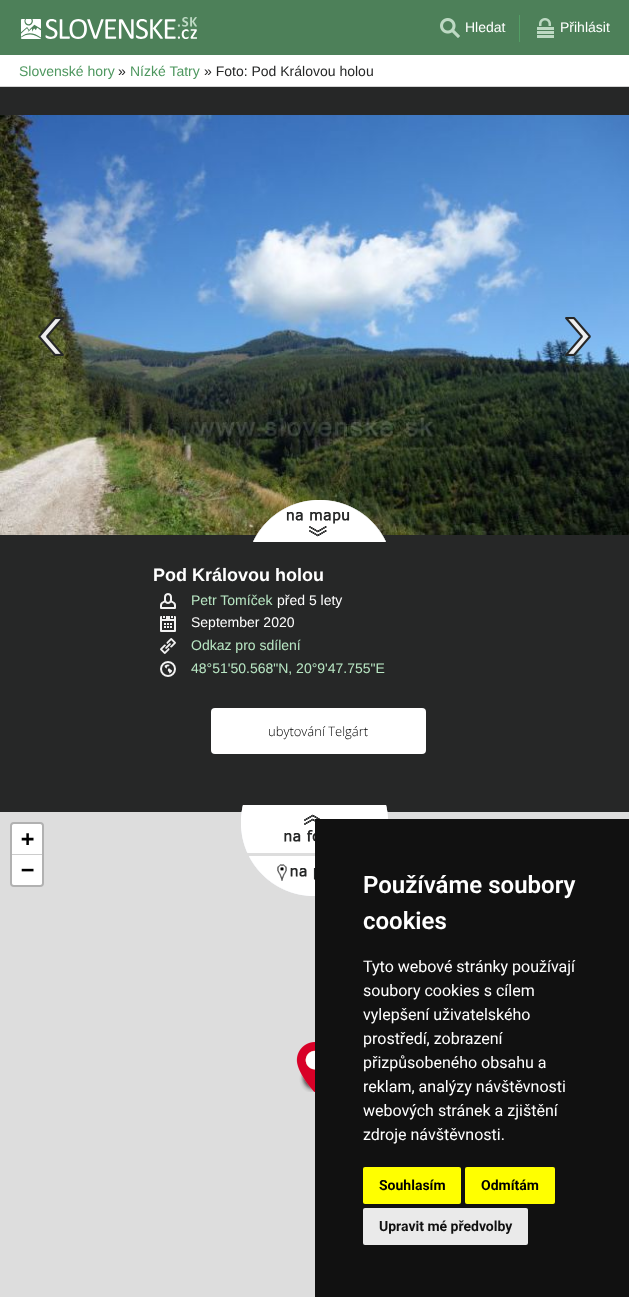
<svg xmlns="http://www.w3.org/2000/svg" width="629" height="1297" viewBox="0 0 629 1297">
  <style>
    .t1 { font: 14px Liberation Sans; fill: #fff; }
    .t2 { font: 14px Liberation Sans; fill: #4e975f; }
    .t3 { font: 14px Liberation Sans; fill: #262727; }
    .t4 { font: bold 18px Liberation Sans; fill: #fff; }
    .t5 { font: 14px Liberation Sans; fill: #b8e6c3; }
    .t6 { font: 300 13px Open Sans; fill: #000; }
    .t7 { font: bold 22px DejaVu Sans Mono; fill: #000; }
    .t8 { font: 600 24px Roboto; fill: #fff; }
    .t9 { font: 16px Roboto; fill: #fff; }
    .t10 { font: bold 14px Roboto; fill: #000; }
    .t11 { font: bold 14px Roboto; fill: #111; }
  </style>
  <rect width="100%" height="100%" fill="#262727"/>
  <rect x="0" y="0" width="629" height="55" fill="#4d8059"/>
  <image x="21" y="17" width="176" height="22" href="images/1.png"/>
  <image x="440" y="18" width="20" height="20" href="images/2.png"/>
  <text x="465" y="32" class="t1">Hledat</text>
  <rect x="519" y="15" width="1" height="27" fill="#539e65"/>
  <image x="537" y="18" width="17" height="20" href="images/3.png"/>
  <text x="560" y="32" class="t1">Přihlásit</text>
  <rect x="0" y="55" width="629" height="31" fill="#fff"/>
  <rect x="0" y="86" width="629" height="1" fill="#d4d4d4"/>
  <text x="19" y="76" class="t2">Slovenské hory</text>
  <text x="118" y="76" class="t3">»</text>
  <text x="130" y="76" class="t2">Nízké Tatry</text>
  <text x="204" y="76" class="t3">» Foto: Pod Královou holou</text>
  <image x="0" y="115" width="629" height="420" href="images/4.png"/>
  <image x="38" y="317" width="26" height="39" href="images/5.png"/>
  <image x="565" y="317" width="26" height="39" href="images/6.png"/>
  <image x="253" y="500" width="133" height="42" href="images/7.png"/>
  <text x="153" y="581" class="t4">Pod Královou holou</text>
  <image x="160" y="593" width="16" height="16" href="images/8.png"/>
  <text x="191" y="605" class="t5">Petr Tomíček</text>
  <text x="277" y="605" class="t1">před 5 lety</text>
  <image x="160" y="616" width="16" height="16" href="images/9.png"/>
  <text x="191" y="627" class="t1">September 2020</text>
  <image x="160" y="638" width="16" height="16" href="images/10.png"/>
  <text x="191" y="650" class="t5">Odkaz pro sdílení</text>
  <image x="160" y="661" width="16" height="16" href="images/11.png"/>
  <text x="191" y="673" class="t5">48°51'50.568"N, 20°9'47.755"E</text>
  <rect x="211" y="708" width="215" height="46" rx="4" fill="#fff"/>
  <text x="268" y="736" class="t6">ubytování Telgárt</text>
  <rect x="0" y="812" width="629" height="485" fill="#ddd"/>
  <rect x="11" y="823" width="32" height="63" rx="3" fill="none" stroke="#b1b1b1" stroke-width="2"/>
  <path d="M14 824H40C41 824 42 825 42 826V855H12V826C12 825 13 824 14 824Z" fill="#fff"/>
  <rect x="12" y="854" width="30" height="1" fill="#ccc"/>
  <text x="21" y="846" class="t7">+</text>
  <path d="M12 855H42V883C42 884 41 885 40 885H14C13 885 12 884 12 883Z" fill="#fff"/>
  <text x="21" y="877" class="t7">−</text>
  <image x="296" y="1042" width="19" height="50" href="images/12.png"/>
  <image x="241" y="805" width="147" height="48" href="images/13.png"/>
  <image x="249" y="856" width="66" height="40" href="images/14.png"/>
  <rect x="315" y="819" width="314" height="478" fill="#111"/>
  <text x="363" y="893" class="t8">Používáme soubory</text>
  <text x="363" y="929" class="t8">cookies</text>
  <text x="363" y="972" class="t9">Tyto webové stránky používají</text>
  <text x="363" y="996" class="t9">soubory cookies s cílem</text>
  <text x="363" y="1020" class="t9">vylepšení uživatelského</text>
  <text x="363" y="1044" class="t9">prostředí, zobrazení</text>
  <text x="363" y="1068" class="t9">přizpůsobeného obsahu a</text>
  <text x="363" y="1092" class="t9">reklam, analýzy návštěvnosti</text>
  <text x="363" y="1116" class="t9">webových stránek a zjištění</text>
  <text x="363" y="1140" class="t9">zdroje návštěvnosti.</text>
  <rect x="363" y="1167" width="98" height="37" rx="2" fill="#ff0"/>
  <text x="379" y="1190" class="t10">Souhlasím</text>
  <rect x="465" y="1167" width="90" height="37" rx="2" fill="#ff0"/>
  <text x="481" y="1190" class="t10">Odmítám</text>
  <rect x="363" y="1208" width="165" height="37" rx="2" fill="#eaeaea"/>
  <text x="379" y="1231" class="t11">Upravit mé předvolby</text>
</svg>
